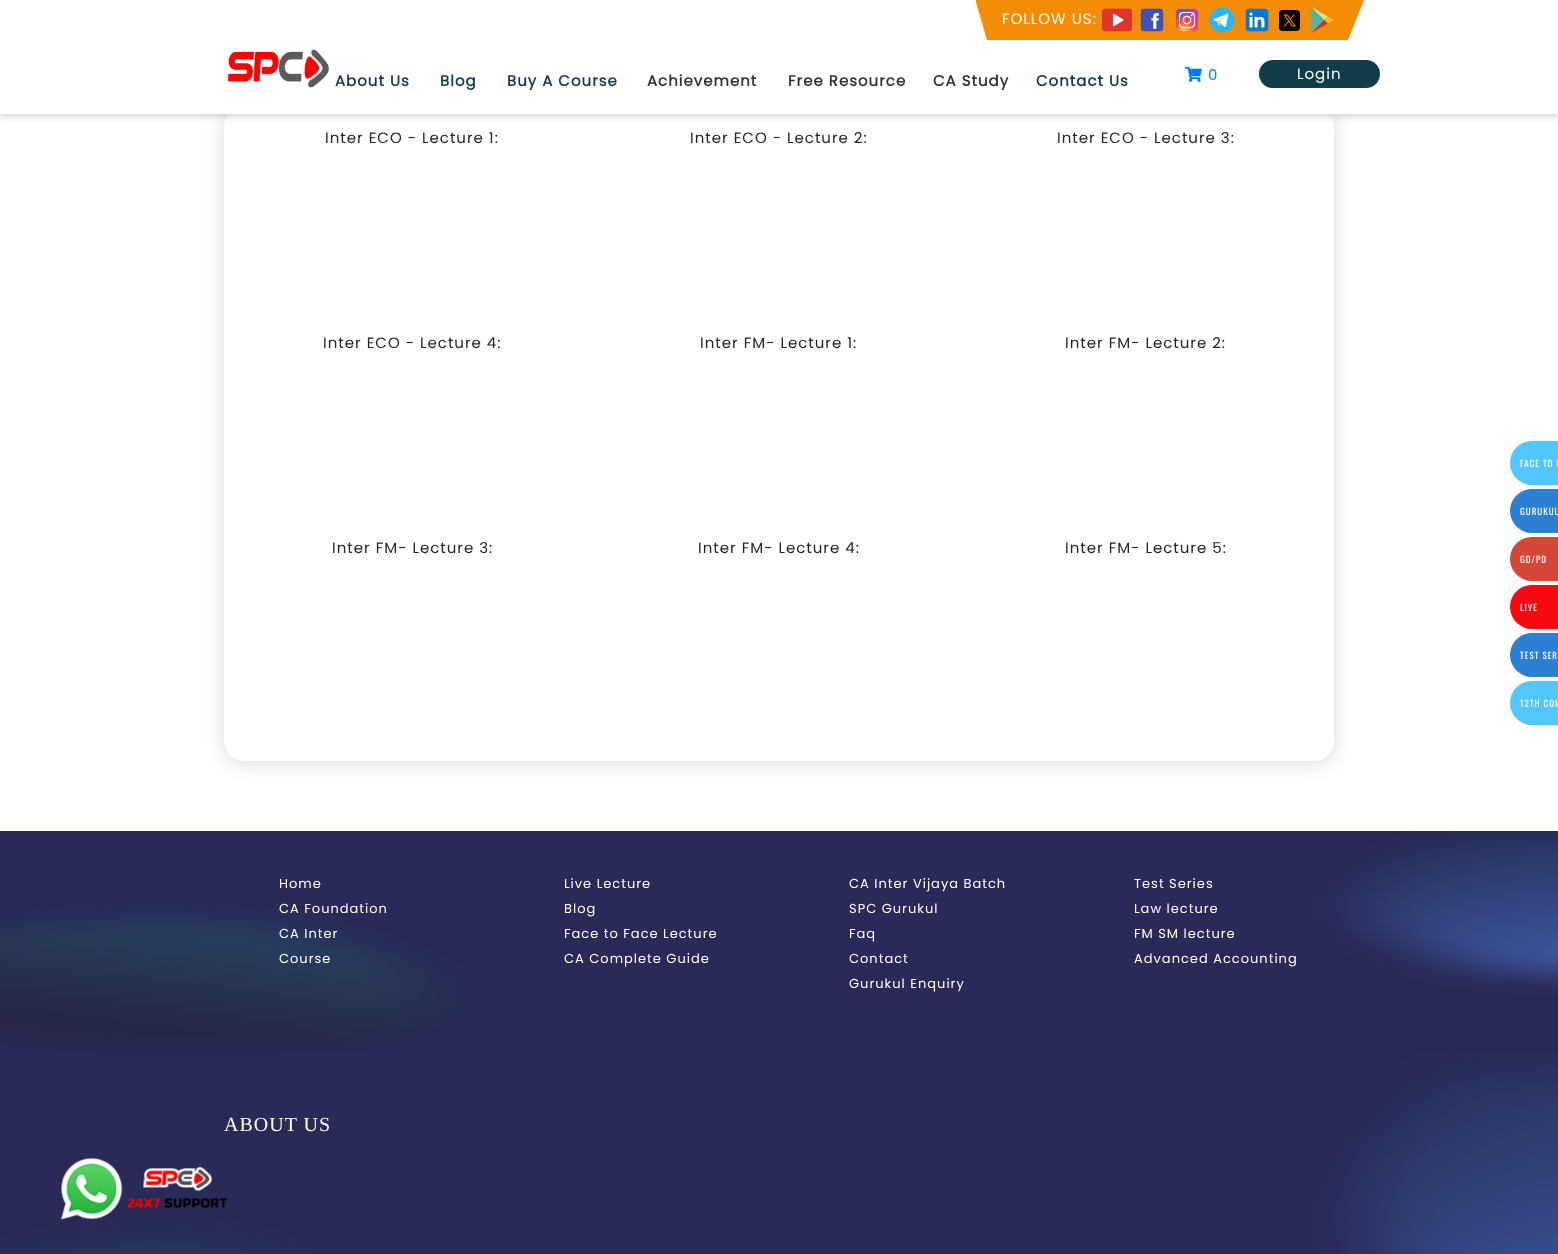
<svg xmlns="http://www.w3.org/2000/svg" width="1558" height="1254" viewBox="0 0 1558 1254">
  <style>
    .t1 { font: 15px Poppins; letter-spacing: 1px; fill: #fff; }
    .t2 { font: bold 15px Poppins; letter-spacing: 1px; fill: #113c49; }
    .t3 { font: bold 15px Poppins; letter-spacing: 1px; fill: #333; }
    .t4 { font: 15px Poppins; letter-spacing: 1px; fill: #007bff; }
    .t5 { font: 15px Poppins; letter-spacing: 1px; fill: #212529; }
    .t6 { font: 9px Oswald; letter-spacing: 1px; fill: #fff; }
    .t7 { font: 13px Poppins; letter-spacing: 1px; fill: #fff; }
    .t8 { font: 20px Liberation Serif; letter-spacing: 1px; fill: #fff; }
  </style>
  <rect width="100%" height="100%" fill="#fff"/>
  <rect x="224" y="108" width="1110" height="655" rx="20" fill="#00000026" filter="blur(10px)"/>
  <rect x="224" y="106" width="1110" height="655" rx="20" fill="#fff"/>
  <rect x="0" y="3" width="1558" height="114" fill="#00000029" filter="blur(3px)"/>
  <rect x="0" y="0" width="1558" height="114" fill="#fff"/>
  <path d="M976 0V2L987 40H1348L1364 0Z" fill="#f48c06"/>
  <text x="1002" y="24" class="t1">FOLLOW US:</text>
  <image x="1102" y="8" width="30" height="24" href="images/1.png"/>
  <image x="1140" y="8" width="24" height="24" href="images/2.png"/>
  <image x="1175" y="8" width="24" height="24" href="images/3.png"/>
  <image x="1209" y="7" width="26" height="26" href="images/4.png"/>
  <image x="1245" y="8" width="24" height="24" href="images/5.png"/>
  <image x="1279" y="10" width="21" height="21" href="images/6.png"/>
  <image x="1311" y="7" width="23" height="26" href="images/7.png"/>
  <image x="228" y="49" width="101" height="39" href="images/8.png"/>
  <text x="335" y="86" class="t2">About Us</text>
  <text x="440" y="86" class="t2">Blog</text>
  <text x="507" y="86" class="t2">Buy A Course</text>
  <text x="647" y="86" class="t3">Achievement</text>
  <text x="788" y="86" class="t3">Free Resource</text>
  <text x="933" y="86" class="t3">CA Study</text>
  <text x="1036" y="86" class="t2">Contact Us</text>
  <image x="1185" y="66" width="17" height="16" href="images/9.png"/>
  <text x="1208" y="80" class="t4">0</text>
  <rect x="1259" y="60" width="121" height="28" rx="14" fill="#113c49"/>
  <text x="1297" y="79" class="t1">Login</text>
  <text x="325" y="143" class="t5">Inter ECO - Lecture 1:</text>
  <text x="690" y="143" class="t5">Inter ECO - Lecture 2:</text>
  <text x="1057" y="143" class="t5">Inter ECO - Lecture 3:</text>
  <text x="323" y="348" class="t5">Inter ECO - Lecture 4:</text>
  <text x="700" y="348" class="t5">Inter FM- Lecture 1:</text>
  <text x="1065" y="348" class="t5">Inter FM- Lecture 2:</text>
  <text x="332" y="553" class="t5">Inter FM- Lecture 3:</text>
  <text x="698" y="553" class="t5">Inter FM- Lecture 4:</text>
  <text x="1065" y="553" class="t5">Inter FM- Lecture 5:</text>
  <path d="M1532 441H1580V485H1532C1520 485 1510 475 1510 463C1510 451 1520 441 1532 441Z" fill="#53c5ff"/>
  <text x="1520" y="467" class="t6">FACE TO F</text>
  <path d="M1532 489H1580V533H1532C1520 533 1510 523 1510 511C1510 499 1520 489 1532 489Z" fill="#2c80d3"/>
  <text x="1520" y="515" class="t6">GURUKUL</text>
  <path d="M1532 537H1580V581H1532C1520 581 1510 571 1510 559C1510 547 1520 537 1532 537Z" fill="#d34836"/>
  <text x="1520" y="563" class="t6">GD/PD</text>
  <path d="M1532 585H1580V629H1532C1520 629 1510 619 1510 607C1510 595 1520 585 1532 585Z" fill="#fa0910"/>
  <text x="1520" y="611" class="t6">LIVE</text>
  <path d="M1532 633H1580V677H1532C1520 677 1510 667 1510 655C1510 643 1520 633 1532 633Z" fill="#2c80d3"/>
  <text x="1520" y="659" class="t6">TEST SER</text>
  <path d="M1532 681H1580V725H1532C1520 725 1510 715 1510 703C1510 691 1520 681 1532 681Z" fill="#53c5ff"/>
  <text x="1520" y="707" class="t6">12TH COM</text>
  <image x="0" y="831" width="1558" height="221" href="images/10.png"/>
  <text x="279" y="888" class="t7">Home</text>
  <text x="279" y="913" class="t7">CA Foundation</text>
  <text x="279" y="938" class="t7">CA Inter</text>
  <text x="279" y="963" class="t7">Course</text>
  <text x="564" y="888" class="t7">Live Lecture</text>
  <text x="564" y="913" class="t7">Blog</text>
  <text x="564" y="938" class="t7">Face to Face Lecture</text>
  <text x="564" y="963" class="t7">CA Complete Guide</text>
  <text x="849" y="888" class="t7">CA Inter Vijaya Batch</text>
  <text x="849" y="913" class="t7">SPC Gurukul</text>
  <text x="849" y="938" class="t7">Faq</text>
  <text x="849" y="963" class="t7">Contact</text>
  <text x="849" y="988" class="t7">Gurukul Enquiry</text>
  <text x="1134" y="888" class="t7">Test Series</text>
  <text x="1134" y="913" class="t7">Law lecture</text>
  <text x="1134" y="938" class="t7">FM SM lecture</text>
  <text x="1134" y="963" class="t7">Advanced Accounting</text>
  <image x="0" y="1052" width="1558" height="202" href="images/11.png"/>
  <text x="224" y="1131" class="t8">ABOUT US</text>
  <image x="61" y="1158" width="167" height="62" href="images/12.png"/>
</svg>
